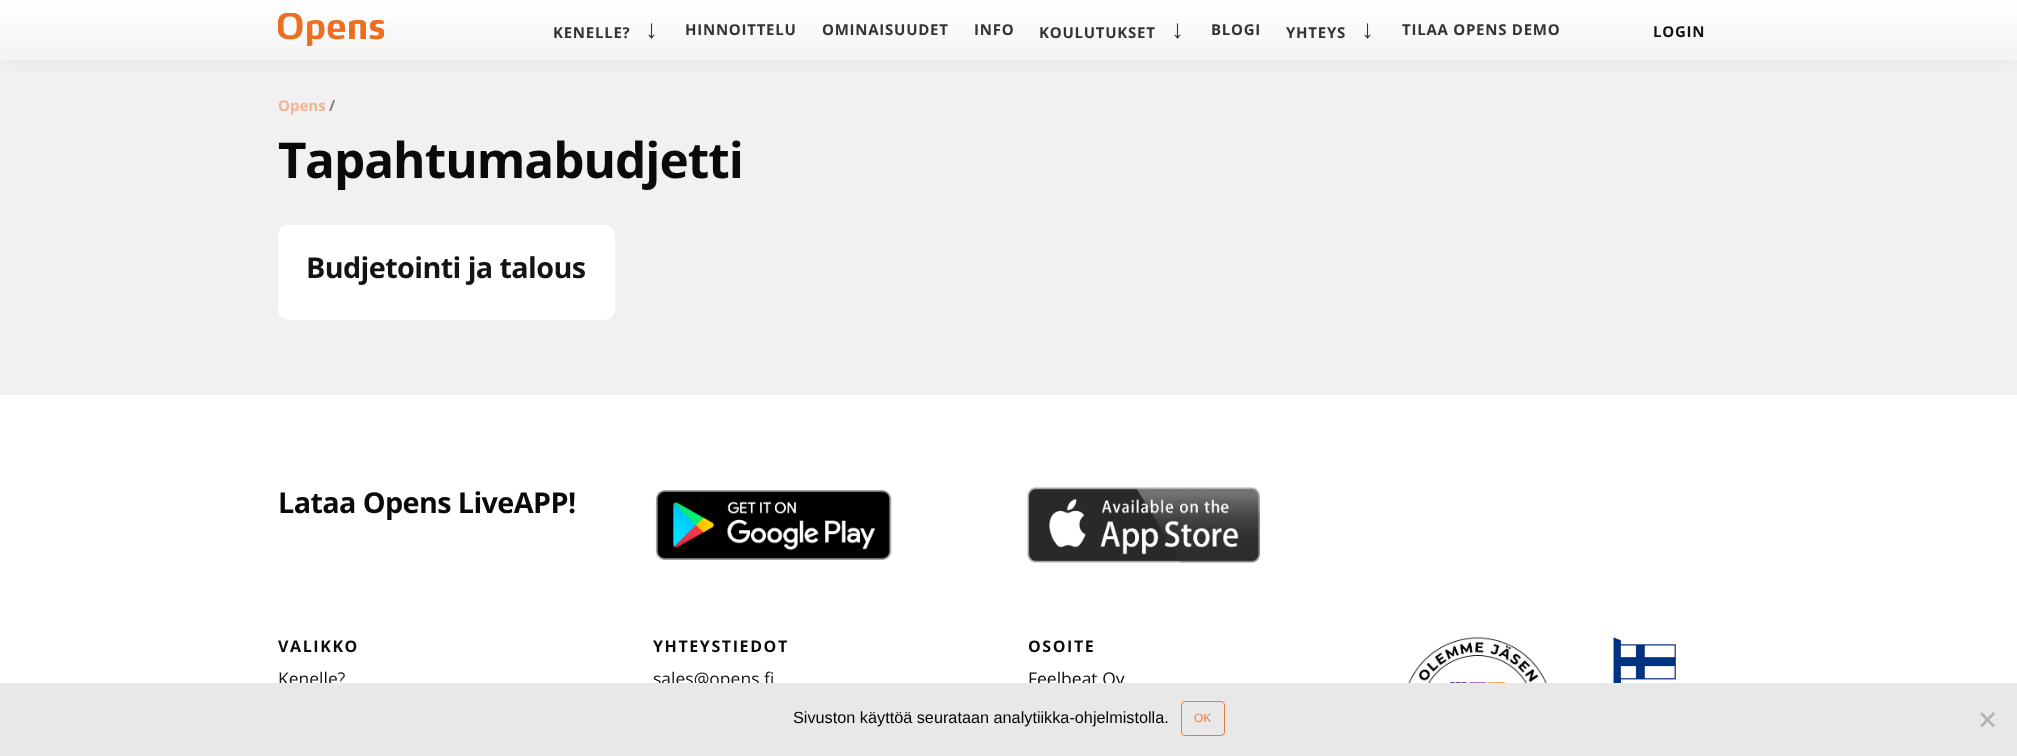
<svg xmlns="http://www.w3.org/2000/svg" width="2017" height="756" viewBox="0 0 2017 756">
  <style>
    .t1 { font: bold 15px Open Sans; letter-spacing: 0.75px; fill: #333; }
    .t2 { font: bold 26px Liberation Sans; fill: #333; }
    .t3 { font: bold 15px Open Sans; letter-spacing: 0.75px; fill: #141414; }
    .t4 { font: bold 15px Open Sans; fill: #f0b694; }
    .t5 { font: bold 15px Open Sans; fill: #7e7e7e; }
    .t6 { font: bold 49.5px Noto Sans; letter-spacing: -1px; fill: #0a0a0a; }
    .t7 { font: bold 49.5px Open Sans; letter-spacing: -1px; fill: #0a0a0a; }
    .t8 { font: bold 28.75px Open Sans; letter-spacing: -0.6px; fill: #141414; }
    .t9 { font: bold 28.75px Open Sans; letter-spacing: -0.6px; fill: #0a0a0a; }
    .t10 { font: bold 16px Open Sans; letter-spacing: 1.6px; fill: #0a0a0a; }
    .t11 { font: 17.5px Open Sans; fill: #141414; }
    .t12 { font: 17.5px Open Sans; fill: #0a0a0a; }
    .t13 { font: 16.25px Liberation Sans; fill: #020202; }
    .t14 { font: 12px Liberation Sans; fill: #ef7a37; }
  </style>
  <defs>
    <linearGradient id="g1" gradientUnits="userSpaceOnUse" x1="1009" y1="0" x2="1009" y2="60"><stop offset="0" stop-color="#fff"/><stop offset="1" stop-color="#f4f4f4"/></linearGradient>
  </defs>
  <rect width="100%" height="100%" fill="#f1f1f1"/>
  <rect x="0" y="0" width="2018" height="60" fill="#0000000d" filter="blur(9.5px)"/>
  <rect x="0" y="0" width="2017" height="60" fill="url(#g1)"/>
  <image x="278" y="13" width="106" height="33" href="images/1.png"/>
  <text x="553" y="38" class="t1">KENELLE?</text>
  <text x="645" y="38" class="t2">↓</text>
  <text x="685" y="35" class="t1">HINNOITTELU</text>
  <text x="822" y="35" class="t1">OMINAISUUDET</text>
  <text x="974" y="35" class="t1">INFO</text>
  <text x="1039" y="38" class="t1">KOULUTUKSET</text>
  <text x="1171" y="38" class="t2">↓</text>
  <text x="1211" y="35" class="t1">BLOGI</text>
  <text x="1286" y="38" class="t1">YHTEYS</text>
  <text x="1361" y="38" class="t2">↓</text>
  <text x="1402" y="35" class="t1">TILAA OPENS DEMO</text>
  <text x="1653" y="37" class="t3">LOGIN</text>
  <text x="278" y="111" class="t4">Opens</text>
  <text x="329" y="111" class="t5">/</text>
  <text x="278" y="178" class="t6">T</text>
  <text x="305" y="178" class="t7">apahtumabudjetti</text>
  <rect x="278" y="225" width="337" height="95" rx="10" fill="#fff"/>
  <text x="306" y="278" class="t8">Budjetointi ja talous</text>
  <rect x="0" y="395" width="2017" height="288" fill="#fff"/>
  <text x="278" y="513" class="t9">Lataa Opens LiveAPP!</text>
  <image x="655" y="490" width="237" height="70" href="images/2.png"/>
  <image x="1027" y="487" width="233" height="76" href="images/3.png"/>
  <text x="278" y="652" class="t10">VALIKKO</text>
  <text x="278" y="685" class="t11">Kenelle?</text>
  <text x="653" y="652" class="t10">YHTEYSTIEDOT</text>
  <text x="653" y="685" class="t11">sales@opens.fi</text>
  <text x="1028" y="652" class="t10">OSOITE</text>
  <text x="1028" y="685" class="t12">Feelbeat Oy</text>
  <image x="1408" y="637" width="139" height="46" href="images/4.png"/>
  <image x="1613" y="637" width="63" height="46" href="images/5.png"/>
  <rect x="0" y="683" width="2017" height="73" fill="#e8e8e8"/>
  <text x="793" y="723" class="t13">Sivuston käyttöä seurataan analytiikka-ohjelmistolla.</text>
  <rect x="1181.5" y="701.5" width="43" height="34" rx="3.5" fill="none" stroke="#ef7a37"/>
  <text x="1194" y="722" class="t14">OK</text>
  <path d="M1993 712L1995 714L1982 727.5L1980 725.5Z" fill="#b4b4b4"/>
  <path d="M1980 714L1982 712L1995 725.5L1993 727.5Z" fill="#b4b4b4"/>
</svg>
